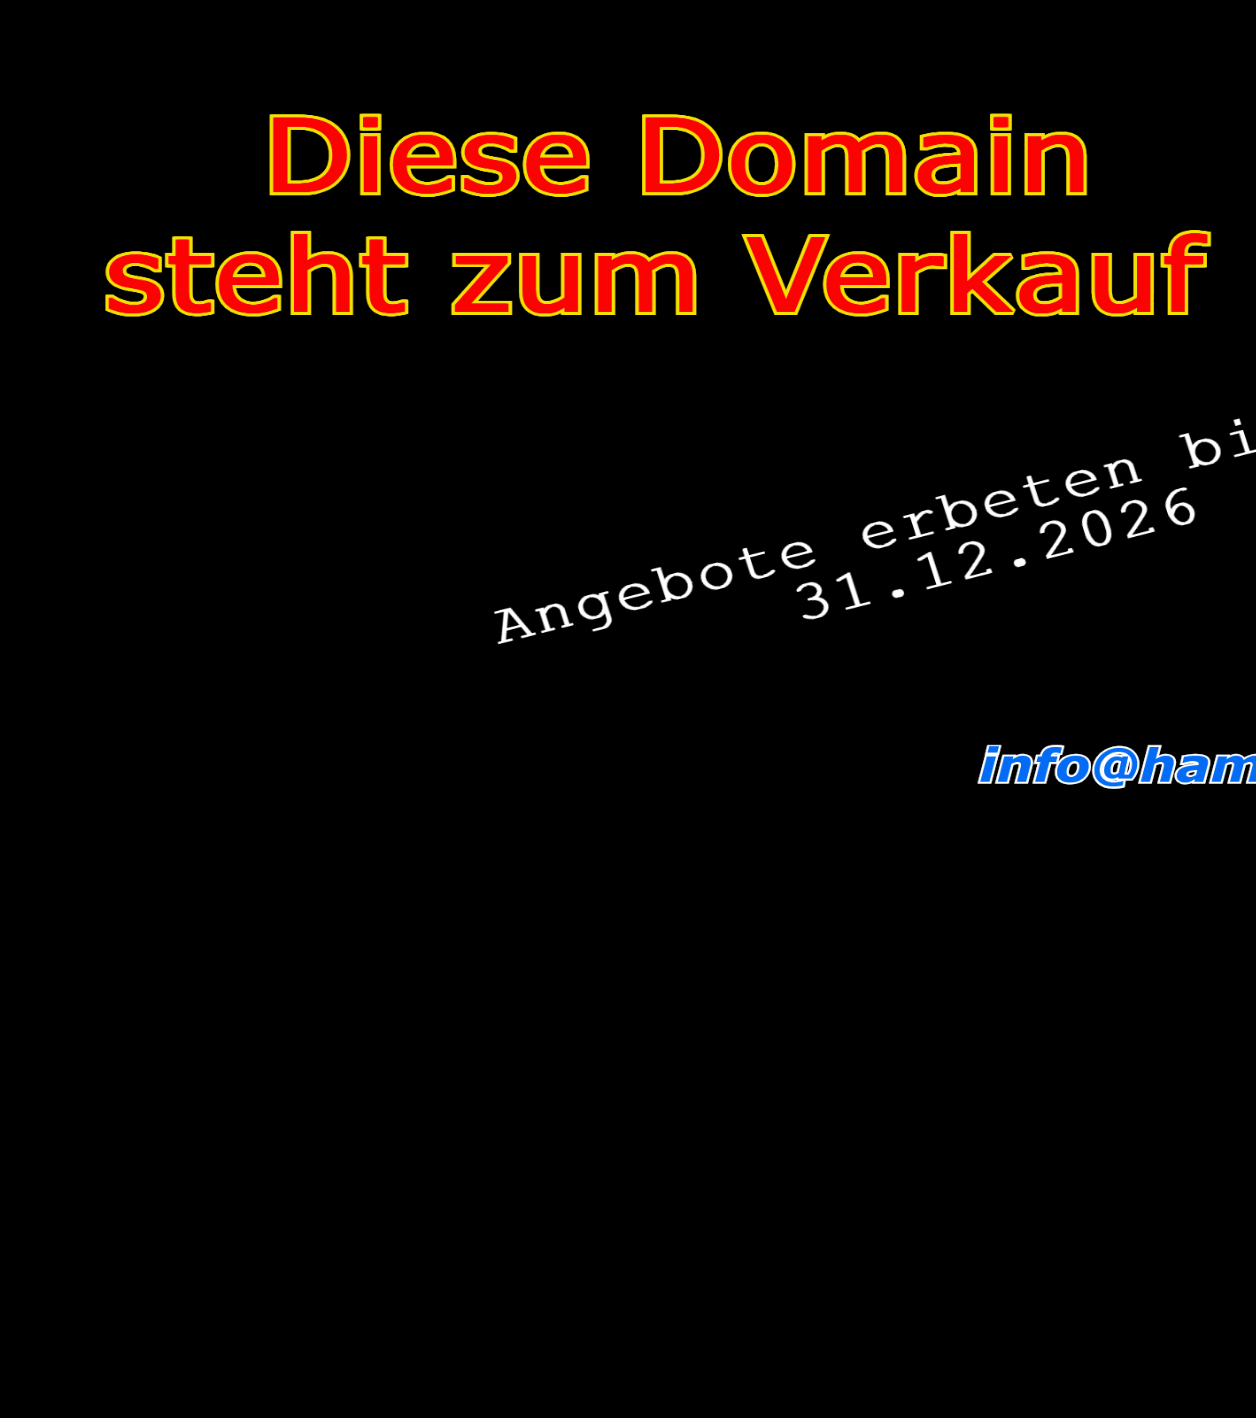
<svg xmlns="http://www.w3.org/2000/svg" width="1256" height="1418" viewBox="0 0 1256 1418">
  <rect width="100%" height="100%" fill="#000"/>
  <image x="104" y="113" width="1152" height="676" href="images/1.png"/>
</svg>
